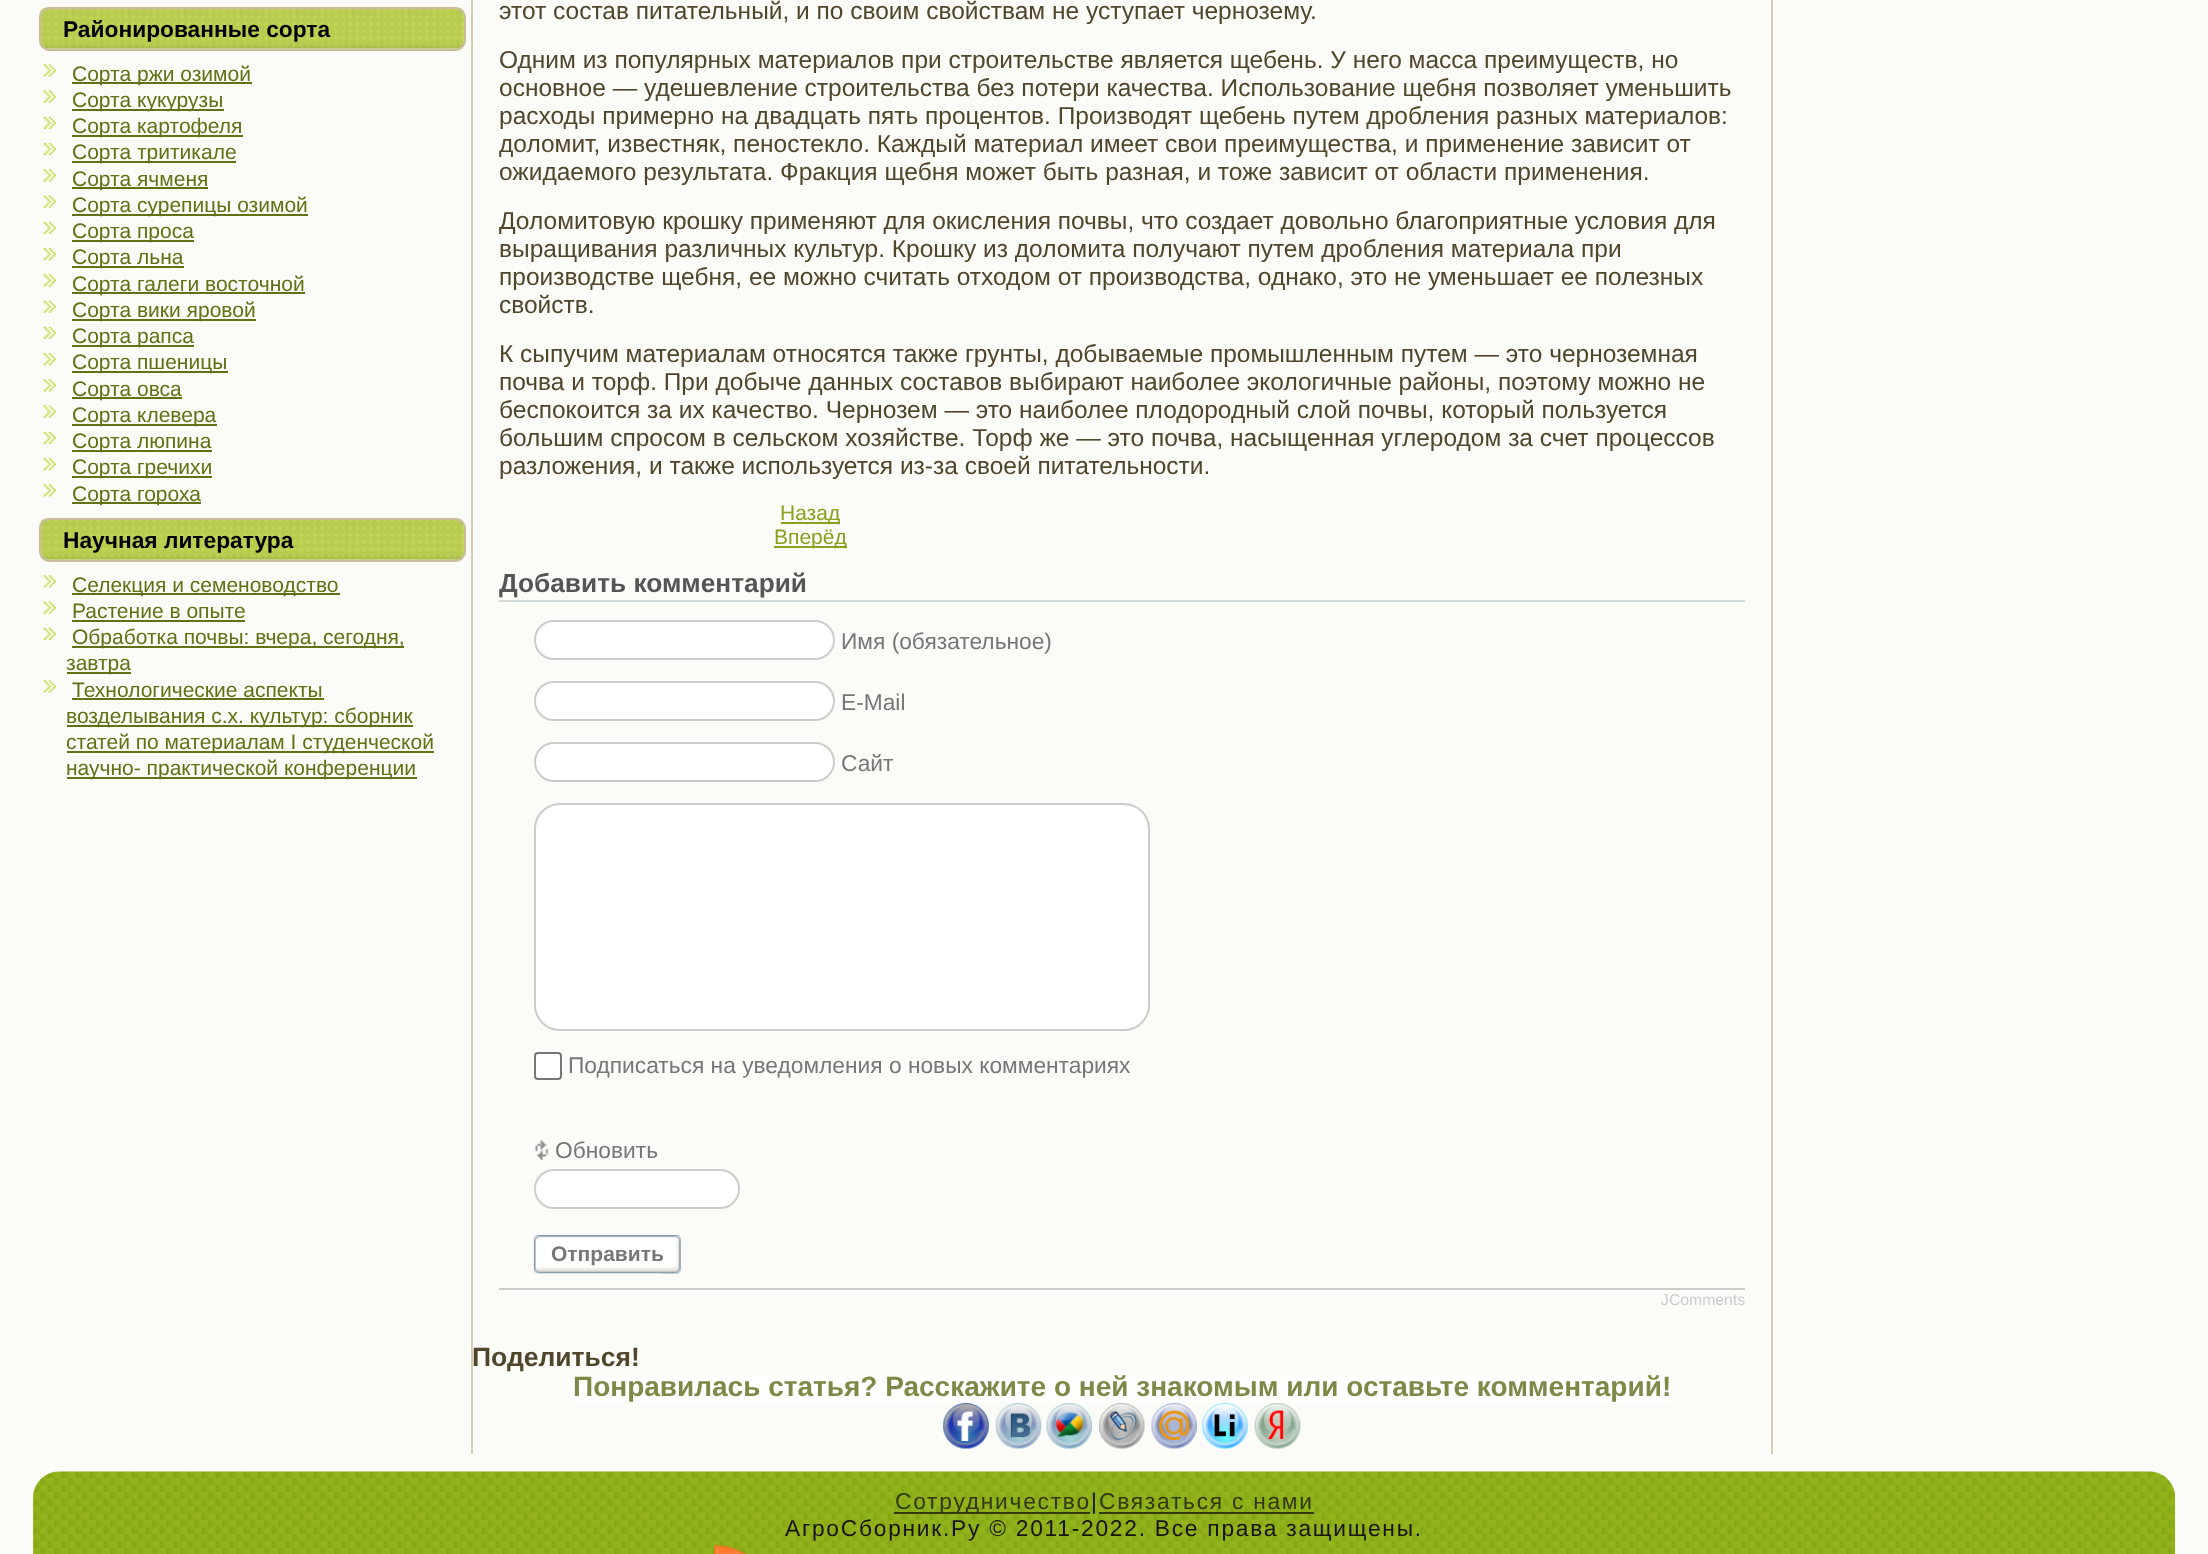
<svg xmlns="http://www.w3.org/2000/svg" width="2208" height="1554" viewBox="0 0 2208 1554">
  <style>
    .t1 { font: bold 22.75px Liberation Sans; fill: #000; }
    .t2 { font: 21px Liberation Sans; fill: #617114; }
    .t3 { font: 24.5px Liberation Sans; fill: #50462b; }
    .t4 { font: 21px Liberation Sans; fill: #8aa01c; }
    .t5 { font: bold 26.25px Liberation Sans; fill: #555; }
    .t6 { font: 22.75px Liberation Sans; fill: #777; }
    .t7 { font: bold 21px Liberation Sans; fill: #777; }
    .t8 { font: 15.75px Liberation Sans; fill: #ccc; }
    .t9 { font: bold 26.5px Liberation Sans; fill: #50462b; }
    .t10 { font: bold 28px Liberation Sans; fill: #7c8947; }
    .t11 { font: 22.75px Liberation Sans; letter-spacing: 1.75px; fill: #31380a; }
    .t12 { font: 22.75px Liberation Sans; letter-spacing: 1.75px; fill: #17140c; }
  </style>
  <rect width="100%" height="100%" fill="#fbfbf8"/>
  <rect x="471" y="0" width="2" height="1454" fill="#d6cdb3"/>
  <image x="38" y="6" width="428" height="44" href="images/1.png"/>
  <rect x="40" y="8" width="425" height="42" rx="10" fill="none" stroke="#c9bd9c" stroke-width="2"/>
  <text x="63" y="37" class="t1">Районированные сорта</text>
  <image x="43" y="64" width="13" height="13" href="images/2.png"/>
  <rect x="72" y="82" width="180" height="2" fill="#617114"/>
  <text x="72" y="81" class="t2">Сорта ржи озимой</text>
  <image x="43" y="90" width="13" height="13" href="images/3.png"/>
  <rect x="72" y="109" width="152" height="2" fill="#617114"/>
  <text x="72" y="107" class="t2">Сорта кукурузы</text>
  <image x="43" y="116" width="13" height="13" href="images/4.png"/>
  <rect x="72" y="135" width="171" height="2" fill="#617114"/>
  <text x="72" y="133" class="t2">Сорта картофеля</text>
  <image x="43" y="143" width="13" height="13" href="images/5.png"/>
  <rect x="72" y="161" width="164" height="2" fill="#617114"/>
  <text x="72" y="159" class="t2">Сорта тритикале</text>
  <image x="43" y="169" width="13" height="13" href="images/2.png"/>
  <rect x="72" y="187" width="136" height="2" fill="#617114"/>
  <text x="72" y="186" class="t2">Сорта ячменя</text>
  <image x="43" y="195" width="13" height="13" href="images/3.png"/>
  <rect x="72" y="214" width="236" height="2" fill="#617114"/>
  <text x="72" y="212" class="t2">Сорта сурепицы озимой</text>
  <image x="43" y="221" width="13" height="13" href="images/4.png"/>
  <rect x="72" y="240" width="122" height="2" fill="#617114"/>
  <text x="72" y="238" class="t2">Сорта проса</text>
  <image x="43" y="248" width="13" height="13" href="images/5.png"/>
  <rect x="72" y="266" width="112" height="2" fill="#617114"/>
  <text x="72" y="264" class="t2">Сорта льна</text>
  <image x="43" y="274" width="13" height="13" href="images/2.png"/>
  <rect x="72" y="292" width="233" height="2" fill="#617114"/>
  <text x="72" y="291" class="t2">Сорта галеги восточной</text>
  <image x="43" y="300" width="13" height="13" href="images/3.png"/>
  <rect x="72" y="319" width="184" height="2" fill="#617114"/>
  <text x="72" y="317" class="t2">Сорта вики яровой</text>
  <image x="43" y="326" width="13" height="13" href="images/4.png"/>
  <rect x="72" y="345" width="122" height="2" fill="#617114"/>
  <text x="72" y="343" class="t2">Сорта рапса</text>
  <image x="43" y="353" width="13" height="13" href="images/5.png"/>
  <rect x="72" y="371" width="156" height="2" fill="#617114"/>
  <text x="72" y="369" class="t2">Сорта пшеницы</text>
  <image x="43" y="379" width="13" height="13" href="images/2.png"/>
  <rect x="72" y="397" width="110" height="2" fill="#617114"/>
  <text x="72" y="396" class="t2">Сорта овса</text>
  <image x="43" y="405" width="13" height="13" href="images/3.png"/>
  <rect x="72" y="424" width="145" height="2" fill="#617114"/>
  <text x="72" y="422" class="t2">Сорта клевера</text>
  <image x="43" y="431" width="13" height="13" href="images/4.png"/>
  <rect x="72" y="450" width="140" height="2" fill="#617114"/>
  <text x="72" y="448" class="t2">Сорта люпина</text>
  <image x="43" y="458" width="13" height="13" href="images/5.png"/>
  <rect x="72" y="476" width="140" height="2" fill="#617114"/>
  <text x="72" y="474" class="t2">Сорта гречихи</text>
  <image x="43" y="484" width="13" height="13" href="images/2.png"/>
  <rect x="72" y="502" width="129" height="2" fill="#617114"/>
  <text x="72" y="501" class="t2">Сорта гороха</text>
  <image x="38" y="517" width="428" height="44" href="images/1.png"/>
  <rect x="40" y="519" width="425" height="42" rx="10" fill="none" stroke="#c9bd9c" stroke-width="2"/>
  <text x="63" y="548" class="t1">Научная литература</text>
  <image x="43" y="575" width="13" height="13" href="images/2.png"/>
  <rect x="72" y="593" width="268" height="2" fill="#617114"/>
  <text x="72" y="592" class="t2">Селекция и семеноводство</text>
  <image x="43" y="601" width="13" height="13" href="images/6.png"/>
  <text x="72" y="618" class="t2">Растение в опыте</text>
  <rect x="72" y="620" width="173" height="2" fill="#617114"/>
  <image x="43" y="627" width="13" height="13" href="images/4.png"/>
  <rect x="72" y="646" width="332" height="2" fill="#617114"/>
  <text x="72" y="644" class="t2">Обработка почвы: вчера, сегодня,</text>
  <rect x="67" y="672" width="64" height="2" fill="#617114"/>
  <text x="66" y="670" class="t2">завтра</text>
  <image x="43" y="680" width="13" height="13" href="images/2.png"/>
  <text x="72" y="697" class="t2">Технологические аспекты</text>
  <rect x="72" y="698" width="252" height="2" fill="#617114"/>
  <rect x="67" y="725" width="346" height="2" fill="#617114"/>
  <text x="66" y="723" class="t2">возделывания с.х. культур: сборник</text>
  <rect x="67" y="751" width="367" height="2" fill="#617114"/>
  <text x="66" y="749" class="t2">статей по материалам I студенческой</text>
  <rect x="67" y="777" width="350" height="2" fill="#617114"/>
  <text x="66" y="775" class="t2">научно- практической конференции</text>
  <text x="499" y="19" class="t3">этот состав питательный, и по своим свойствам не уступает чернозему.</text>
  <text x="499" y="68" class="t3">Одним из популярных материалов при строительстве является щебень. У него масса преимуществ, но</text>
  <text x="499" y="96" class="t3">основное — удешевление строительства без потери качества. Использование щебня позволяет уменьшить</text>
  <text x="499" y="124" class="t3">расходы примерно на двадцать пять процентов. Производят щебень путем дробления разных материалов:</text>
  <text x="499" y="152" class="t3">доломит, известняк, пеностекло. Каждый материал имеет свои преимущества, и применение зависит от</text>
  <text x="499" y="180" class="t3">ожидаемого результата. Фракция щебня может быть разная, и тоже зависит от области применения.</text>
  <text x="499" y="229" class="t3">Доломитовую крошку применяют для окисления почвы, что создает довольно благоприятные условия для</text>
  <text x="499" y="257" class="t3">выращивания различных культур. Крошку из доломита получают путем дробления материала при</text>
  <text x="499" y="285" class="t3">производстве щебня, ее можно считать отходом от производства, однако, это не уменьшает ее полезных</text>
  <text x="499" y="313" class="t3">свойств.</text>
  <text x="499" y="362" class="t3">К сыпучим материалам относятся также грунты, добываемые промышленным путем — это черноземная</text>
  <text x="499" y="390" class="t3">почва и торф. При добыче данных составов выбирают наиболее экологичные районы, поэтому можно не</text>
  <text x="499" y="418" class="t3">беспокоится за их качество. Чернозем — это наиболее плодородный слой почвы, который пользуется</text>
  <text x="499" y="446" class="t3">большим спросом в сельском хозяйстве. Торф же — это почва, насыщенная углеродом за счет процессов</text>
  <text x="499" y="474" class="t3">разложения, и также используется из-за своей питательности.</text>
  <rect x="781" y="522" width="59" height="2" fill="#8aa01c"/>
  <text x="780" y="520" class="t4">Назад</text>
  <rect x="774" y="546" width="73" height="2" fill="#8aa01c"/>
  <text x="774" y="544" class="t4">Вперёд</text>
  <rect x="499" y="600" width="1246" height="2" fill="#d2dadb"/>
  <text x="499" y="592" class="t5">Добавить комментарий</text>
  <rect x="535" y="621" width="299" height="38" rx="19" fill="#fff" stroke="#ccc" stroke-width="2"/>
  <text x="841" y="649" class="t6">Имя (обязательное)</text>
  <rect x="535" y="682" width="299" height="38" rx="19" fill="#fff" stroke="#ccc" stroke-width="2"/>
  <text x="841" y="710" class="t6">E-Mail</text>
  <rect x="535" y="743" width="299" height="38" rx="19" fill="#fff" stroke="#ccc" stroke-width="2"/>
  <text x="841" y="771" class="t6">Сайт</text>
  <rect x="535" y="804" width="614" height="226" rx="25" fill="#fff" stroke="#ccc" stroke-width="2"/>
  <rect x="535" y="1053" width="26" height="26" rx="3" fill="#fff" stroke="#767676" stroke-width="2"/>
  <text x="568" y="1073" class="t6">Подписаться на уведомления о новых комментариях</text>
  <image x="535" y="1140" width="14" height="20" href="images/7.png"/>
  <text x="555" y="1158" class="t6">Обновить</text>
  <rect x="535" y="1170" width="204" height="38" rx="19" fill="#fff" stroke="#ccc" stroke-width="2"/>
  <image x="533" y="1235" width="146" height="39" href="images/8.png"/>
  <image x="661" y="1235" width="20" height="39" href="images/9.png"/>
  <text x="551" y="1261" class="t7">Отправить</text>
  <rect x="499" y="1288" width="1246" height="2" fill="#ccc"/>
  <text x="1661" y="1305" class="t8">JComments</text>
  <text x="472" y="1366" class="t9">Поделиться!</text>
  <rect x="572" y="1376" width="1099" height="26" fill="#fff"/>
  <text x="573" y="1396" class="t10">Понравилась статья? Расскажите о ней знакомым или оставьте комментарий!</text>
  <image x="943" y="1403" width="46" height="46" href="images/10.png"/>
  <image x="995" y="1403" width="47" height="46" href="images/11.png"/>
  <image x="1046" y="1403" width="46" height="46" href="images/12.png"/>
  <image x="1099" y="1403" width="46" height="46" href="images/13.png"/>
  <image x="1151" y="1403" width="46" height="46" href="images/14.png"/>
  <image x="1202" y="1403" width="46" height="46" href="images/15.png"/>
  <image x="1254" y="1403" width="47" height="46" href="images/16.png"/>
  <rect x="1771" y="0" width="2" height="1454" fill="#d6cdb3"/>
  <rect x="33" y="1472" width="2142" height="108" rx="26" fill="#a8c12b"/>
  <image x="33" y="1471" width="2143" height="83" href="images/17.png"/>
  <rect x="894" y="1512" width="196" height="2" fill="#31380a"/>
  <text x="895" y="1509" class="t11">Сотрудничество</text>
  <text x="1091" y="1509" class="t12">|</text>
  <text x="1099" y="1509" class="t11">Связаться с нами</text>
  <rect x="1099" y="1512" width="215" height="2" fill="#31380a"/>
  <text x="785" y="1536" class="t12">АгроСборник.Ру © 2011-2022. Все права защищены.</text>
  <image x="714" y="1544" width="33" height="10" href="images/18.png"/>
</svg>
